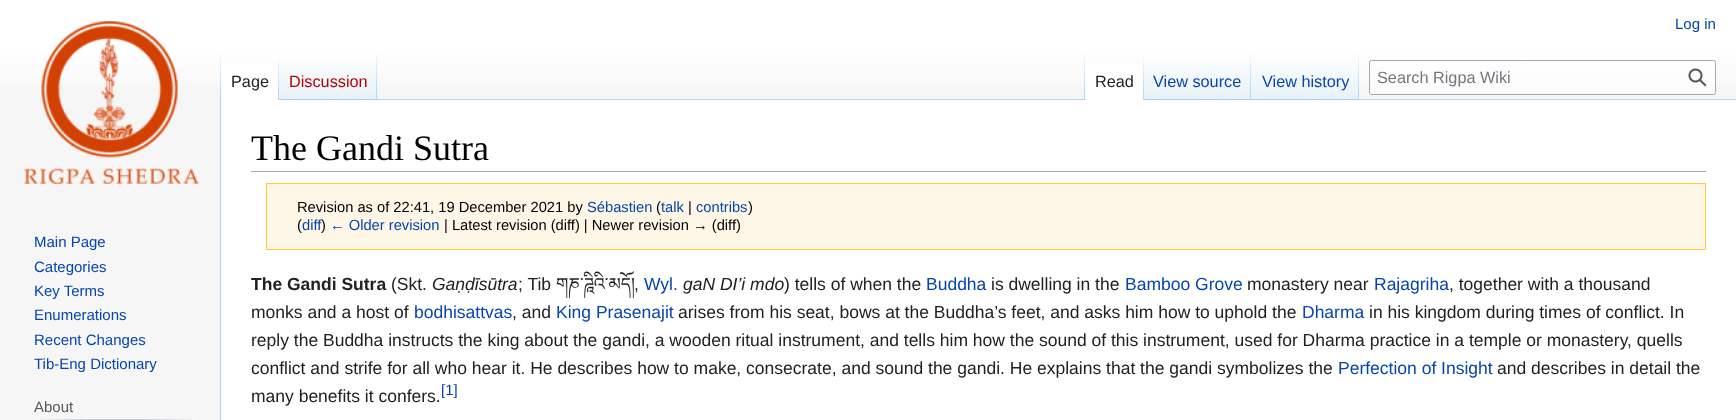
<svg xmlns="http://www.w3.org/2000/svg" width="1736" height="420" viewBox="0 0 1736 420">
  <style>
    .t1 { font: 15px Liberation Sans; fill: #0645ad; }
    .t2 { font: 16.25px Liberation Sans; fill: #202122; }
    .t3 { font: 16.25px Liberation Sans; fill: #ba0000; }
    .t4 { font: 16.25px Liberation Sans; fill: #0645ad; }
    .t5 { font: 16.25px Liberation Sans; fill: #72777d; }
    .t6 { font: 15px Liberation Sans; fill: #54595d; }
    .t7 { font: 36px Liberation Serif; fill: #000; }
    .t8 { font: 14.7px Liberation Sans; fill: #000; }
    .t9 { font: 14.7px Liberation Sans; fill: #0645ad; }
    .t10 { font: bold 17.5px Liberation Sans; fill: #202122; }
    .t11 { font: 17.5px Liberation Sans; fill: #202122; }
    .t12 { font: italic 17.5px Liberation Sans; fill: #202122; }
    .t13 { font: 17.5px Noto Serif Tibetan; fill: #202122; }
    .t14 { font: 17.5px Liberation Sans; fill: #0645ad; }
  </style>
  <defs>
    <linearGradient id="g1" gradientUnits="userSpaceOnUse" x1="868" y1="0" x2="868" y2="100"><stop offset="0.5" stop-color="#fff"/><stop offset="1" stop-color="#f6f6f6"/></linearGradient>
    <linearGradient id="g2" gradientUnits="userSpaceOnUse" x1="221" y1="50" x2="221" y2="100"><stop offset="0" stop-color="#a7d7f9" stop-opacity="0"/><stop offset="1" stop-color="#a7d7f9"/></linearGradient>
    <linearGradient id="g3" gradientUnits="userSpaceOnUse" x1="278" y1="50" x2="278" y2="100"><stop offset="0" stop-color="#fff"/><stop offset="1" stop-color="#a7d7f9"/></linearGradient>
    <linearGradient id="g4" gradientUnits="userSpaceOnUse" x1="328" y1="100" x2="328" y2="50"><stop offset="0" stop-color="#77c1f6"/><stop offset="0.03" stop-color="#e8f2f8"/><stop offset="1" stop-color="#fff"/></linearGradient>
    <linearGradient id="g5" gradientUnits="userSpaceOnUse" x1="377" y1="50" x2="377" y2="100"><stop offset="0" stop-color="#a7d7f9" stop-opacity="0"/><stop offset="1" stop-color="#a7d7f9"/></linearGradient>
    <linearGradient id="g6" gradientUnits="userSpaceOnUse" x1="1084" y1="50" x2="1084" y2="100"><stop offset="0" stop-color="#a7d7f9" stop-opacity="0"/><stop offset="1" stop-color="#a7d7f9"/></linearGradient>
    <linearGradient id="g7" gradientUnits="userSpaceOnUse" x1="1143" y1="50" x2="1143" y2="100"><stop offset="0" stop-color="#fff"/><stop offset="1" stop-color="#a7d7f9"/></linearGradient>
    <linearGradient id="g8" gradientUnits="userSpaceOnUse" x1="1198" y1="100" x2="1198" y2="50"><stop offset="0" stop-color="#77c1f6"/><stop offset="0.03" stop-color="#e8f2f8"/><stop offset="1" stop-color="#fff"/></linearGradient>
    <linearGradient id="g9" gradientUnits="userSpaceOnUse" x1="1251" y1="50" x2="1251" y2="100"><stop offset="0" stop-color="#a7d7f9" stop-opacity="0"/><stop offset="1" stop-color="#a7d7f9"/></linearGradient>
    <linearGradient id="g10" gradientUnits="userSpaceOnUse" x1="1305" y1="100" x2="1305" y2="50"><stop offset="0" stop-color="#77c1f6"/><stop offset="0.03" stop-color="#e8f2f8"/><stop offset="1" stop-color="#fff"/></linearGradient>
    <linearGradient id="g11" gradientUnits="userSpaceOnUse" x1="1358" y1="50" x2="1358" y2="100"><stop offset="0" stop-color="#a7d7f9" stop-opacity="0"/><stop offset="1" stop-color="#a7d7f9"/></linearGradient>
    <linearGradient id="g12" gradientUnits="userSpaceOnUse" x1="34" y1="419" x2="198" y2="419"><stop offset="0" stop-color="#f6f6f6"/><stop offset="0.33" stop-color="#c8ccd1"/><stop offset="0.66" stop-color="#c8ccd1"/><stop offset="1" stop-color="#f6f6f6"/></linearGradient>
  </defs>
  <rect width="100%" height="100%" fill="#f6f6f6"/>
  <rect x="0" y="0" width="1736" height="86" fill="url(#g1)"/>
  <text x="1675" y="29" class="t1">Log in</text>
  <rect x="220" y="99" width="1" height="321" fill="#a7d7f9"/>
  <rect x="220" y="50" width="1" height="50" fill="url(#g2)"/>
  <rect x="221" y="64" width="57" height="36" fill="#fff"/>
  <rect x="278" y="50" width="1" height="50" fill="url(#g3)"/>
  <text x="231" y="87" class="t2">Page</text>
  <rect x="279" y="57" width="99" height="43" fill="url(#g4)"/>
  <rect x="376" y="50" width="1" height="50" fill="url(#g5)"/>
  <text x="289" y="87" class="t3">Discussion</text>
  <rect x="378" y="99" width="1358" height="1" fill="#a7d7f9"/>
  <rect x="1084" y="50" width="1" height="50" fill="url(#g6)"/>
  <rect x="1085" y="64" width="58" height="36" fill="#fff"/>
  <rect x="1143" y="50" width="1" height="50" fill="url(#g7)"/>
  <text x="1095" y="87" class="t2">Read</text>
  <rect x="1144" y="57" width="107" height="43" fill="url(#g8)"/>
  <rect x="1250" y="50" width="1" height="50" fill="url(#g9)"/>
  <text x="1153" y="87" class="t4">View source</text>
  <rect x="1251" y="57" width="108" height="43" fill="url(#g10)"/>
  <rect x="1358" y="50" width="1" height="50" fill="url(#g11)"/>
  <text x="1262" y="87" class="t4">View history</text>
  <rect x="1369.5" y="60.5" width="346" height="34" rx="2" fill="#ffffff80" stroke="#a2a9b1"/>
  <text x="1377" y="83" class="t5">Search Rigpa Wiki</text>
  <image x="1688" y="68" width="19" height="19" href="images/1.png"/>
  <image x="23" y="21" width="176" height="164" href="images/2.png"/>
  <text x="34" y="247" class="t1">Main Page</text>
  <text x="34" y="272" class="t1">Categories</text>
  <text x="34" y="296" class="t1">Key Terms</text>
  <text x="34" y="320" class="t1">Enumerations</text>
  <text x="34" y="345" class="t1">Recent Changes</text>
  <text x="34" y="369" class="t1">Tib-Eng Dictionary</text>
  <rect x="34" y="419" width="164" height="1" fill="url(#g12)"/>
  <text x="34" y="412" class="t6">About</text>
  <rect x="221" y="100" width="1515" height="320" fill="#fff"/>
  <rect x="251" y="171" width="1455" height="1" fill="#a2a9b1"/>
  <text x="251" y="160" class="t7">The Gandi Sutra</text>
  <rect x="266.5" y="183.5" width="1439" height="66" fill="#fef6e7" stroke="#fc3"/>
  <text x="297" y="212" class="t8">Revision as of 22:41, 19 December 2021 by</text>
  <text x="587" y="212" class="t9">Sébastien</text>
  <text x="656" y="212" class="t8">(</text>
  <text x="661" y="212" class="t9">talk</text>
  <text x="688" y="212" class="t8">|</text>
  <text x="696" y="212" class="t9">contribs</text>
  <text x="748" y="212" class="t8">)</text>
  <text x="297" y="230" class="t8">(</text>
  <text x="302" y="230" class="t9">diff</text>
  <text x="321" y="230" class="t8">)</text>
  <text x="330" y="230" class="t9">← Older revision</text>
  <text x="444" y="230" class="t8">| Latest revision (diff) | Newer revision → (diff)</text>
  <text x="251" y="290" class="t10">The Gandi Sutra</text>
  <text x="391" y="290" class="t11">(Skt.</text>
  <text x="432" y="290" class="t12">Gaṇḍīsūtra</text>
  <text x="518" y="290" class="t11">; Tib</text>
  <text x="556" y="290" class="t13">གཎ་ཌཱིའི་མདོ།</text>
  <text x="634" y="290" class="t11">,</text>
  <text x="644" y="290" class="t14">Wyl.</text>
  <text x="683" y="290" class="t12">gaN DI’i mdo</text>
  <text x="784" y="290" class="t11">) tells of when the</text>
  <text x="926" y="290" class="t14">Buddha</text>
  <text x="991" y="290" class="t11">is dwelling in the</text>
  <text x="1125" y="290" class="t14">Bamboo Grove</text>
  <text x="1247" y="290" class="t11">monastery near</text>
  <text x="1374" y="290" class="t14">Rajagriha</text>
  <text x="1449" y="290" class="t11">, together with a thousand</text>
  <text x="251" y="318" class="t11">monks and a host of</text>
  <text x="414" y="318" class="t14">bodhisattvas</text>
  <text x="512" y="318" class="t11">, and</text>
  <text x="556" y="318" class="t14">King Prasenajit</text>
  <text x="678" y="318" class="t11">arises from his seat, bows at the Buddha’s feet, and asks him how to uphold the</text>
  <text x="1302" y="318" class="t14">Dharma</text>
  <text x="1369" y="318" class="t11">in his kingdom during times of conflict. In</text>
  <text x="251" y="346" class="t11">reply the Buddha instructs the king about the gandi, a wooden ritual instrument, and tells him how the sound of this instrument, used for Dharma practice in a temple or monastery, quells</text>
  <text x="251" y="374" class="t11">conflict and strife for all who hear it. He describes how to make, consecrate, and sound the gandi. He explains that the gandi symbolizes the</text>
  <text x="1338" y="374" class="t14">Perfection of Insight</text>
  <text x="1497" y="374" class="t11">and describes in detail the</text>
  <text x="251" y="402" class="t11">many benefits it confers.</text>
  <text x="441" y="395" class="t1">[1]</text>
</svg>
